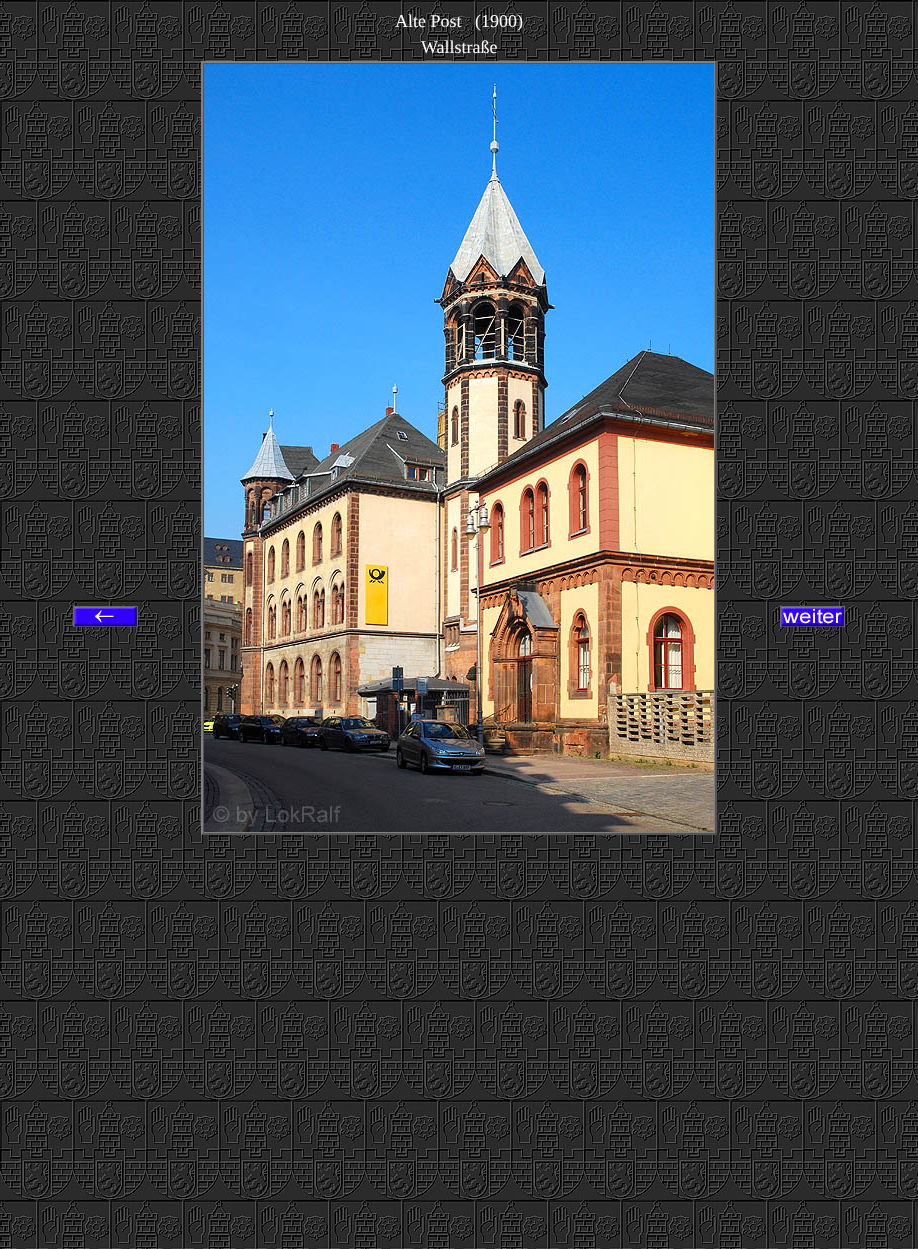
<svg xmlns="http://www.w3.org/2000/svg" width="918" height="1249" viewBox="0 0 918 1249">
  <style>
    .t1 { font: 18px Liberation Serif; fill: #fff; }
  </style>
  <rect width="100%" height="100%" fill="#fff"/>
  <image x="0" y="0" width="918" height="1249" href="images/1.png"/>
  <text x="395" y="27" class="t1" xml:space="preserve">Alte Post   (1900)</text>
  <text x="421" y="53" class="t1">Wallstraße</text>
  <image x="73" y="606" width="65" height="21" href="images/2.png"/>
  <path d="M201 61H717L715 63H203Z" fill="#808080"/>
  <path d="M717 61V835L715 833V63Z" fill="#555"/>
  <path d="M717 835H201L203 833H715Z" fill="#555"/>
  <path d="M201 835V61L203 63V833Z" fill="#808080"/>
  <rect x="203" y="63" width="512" height="1" fill="#555"/>
  <rect x="714" y="63" width="1" height="770" fill="#808080"/>
  <rect x="203" y="832" width="512" height="1" fill="#808080"/>
  <rect x="203" y="63" width="1" height="770" fill="#555"/>
  <image x="204" y="64" width="510" height="768" href="images/3.png"/>
  <image x="780" y="606" width="65" height="21" href="images/4.png"/>
</svg>
